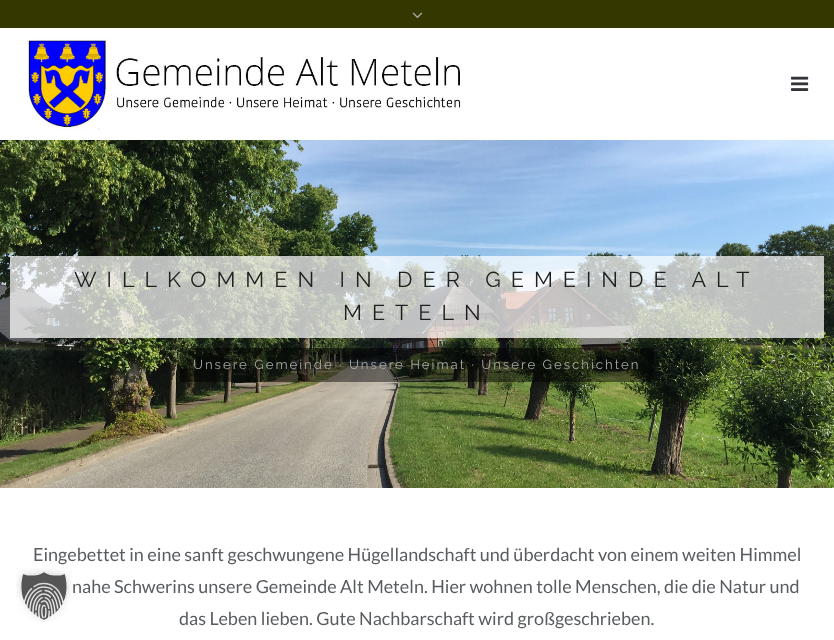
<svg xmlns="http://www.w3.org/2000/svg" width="834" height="640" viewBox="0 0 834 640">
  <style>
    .t1 { font: 21.6px Raleway; letter-spacing: 10px; fill: #1e1f1e; }
    .t2 { font: 13.2px Raleway; letter-spacing: 2px; fill: #a5a7a3; }
    .t3 { font: 18px Lato; fill: #5a5d60; }
  </style>
  <rect width="100%" height="100%" fill="#fff"/>
  <rect x="0" y="0" width="834" height="28" fill="#343800"/>
  <image x="412" y="12" width="11" height="7" href="images/1.png"/>
  <image x="27" y="38" width="435" height="92" href="images/2.png"/>
  <image x="791" y="76" width="18" height="15" href="images/3.png"/>
  <image x="0" y="487" width="834" height="1" href="images/5.png"/>
  <image x="0" y="140" width="834" height="348" href="images/4.png"/>
  <rect x="10" y="256" width="814" height="82" fill="#ffffffb8"/>
  <text x="74" y="287" class="t1">WILLKOMMEN IN DER GEMEINDE ALT</text>
  <text x="343" y="320" class="t1">METELN</text>
  <rect x="180" y="348" width="474" height="34" fill="#0000007a"/>
  <text x="193" y="369" class="t2">Unsere Gemeinde · Unsere Heimat · Unsere Geschichten</text>
  <text x="33" y="561" class="t3">Eingebettet in eine sanft geschwungene Hügellandschaft und überdacht von einem weiten Himmel</text>
  <text x="72" y="593" class="t3">nahe Schwerins unsere Gemeinde Alt Meteln. Hier wohnen tolle Menschen, die die Natur und</text>
  <text x="179" y="625" class="t3">das Leben lieben. Gute Nachbarschaft wird großgeschrieben.</text>
  <image x="16" y="568" width="56" height="54" href="images/6.png"/>
</svg>
